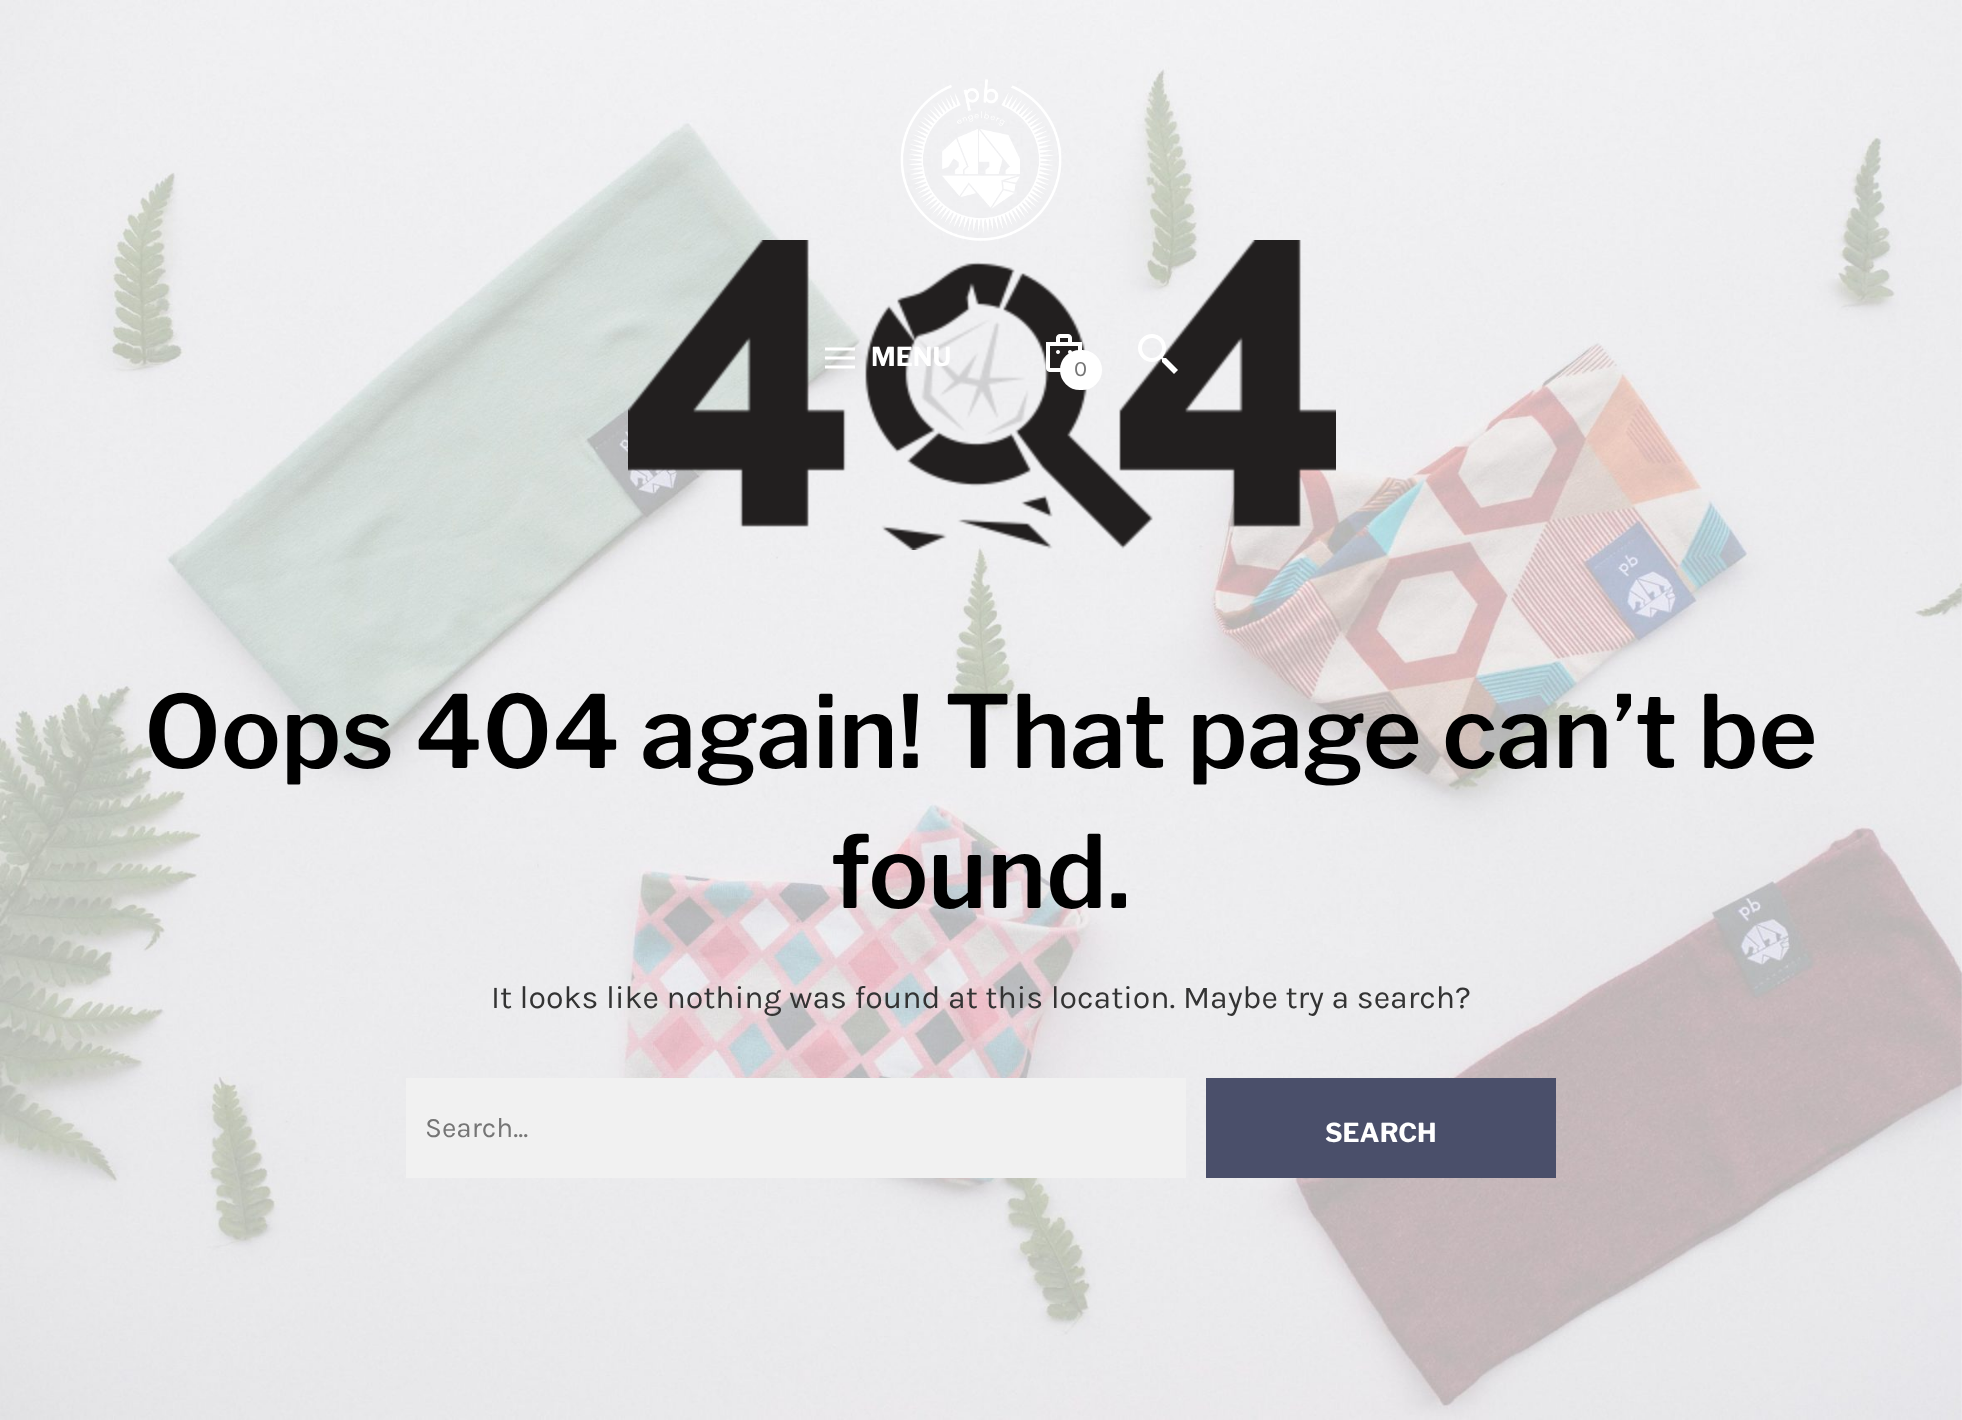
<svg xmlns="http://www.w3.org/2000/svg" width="1962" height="1420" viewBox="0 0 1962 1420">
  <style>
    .t1 { font: bold 26px Libre Franklin; fill: #fff; }
    .t2 { font: 22px Karla; fill: #757575; }
    .t3 { font: 600 100px Libre Franklin; fill: #000; }
    .t4 { font: 32px Karla; fill: #333; }
    .t5 { font: 28px Karla; fill: #757575; }
  </style>
  <rect width="100%" height="100%" fill="#fff"/>
  <image x="0" y="0" width="1962" height="1420" href="images/1.png"/>
  <image x="628" y="240" width="708" height="310" href="images/6.png"/>
  <image x="900" y="79" width="162" height="162" href="images/2.png"/>
  <image x="825" y="347" width="30" height="22" href="images/3.png"/>
  <text x="871" y="366" class="t1">MENU</text>
  <image x="1138" y="334" width="40" height="40" href="images/4.png"/>
  <image x="1046" y="334" width="36" height="38" href="images/5.png"/>
  <rect x="1062" y="352" width="38" height="36" rx="18" fill="#fff" stroke="#fff" stroke-width="4"/>
  <text x="1074" y="376" class="t2">0</text>
  <text x="144" y="768" class="t3">Oops 404 again! That page can’t be</text>
  <text x="831" y="908" class="t3">found.</text>
  <text x="491" y="1008" class="t4">It looks like nothing was found at this location. Maybe try a search?</text>
  <rect x="406" y="1078" width="780" height="100" fill="#f1f1f1"/>
  <text x="425" y="1137" class="t5">Search...</text>
  <rect x="1206" y="1078" width="350" height="100" fill="#4a4f6a"/>
  <text x="1325" y="1142" class="t1">SEARCH</text>
</svg>
